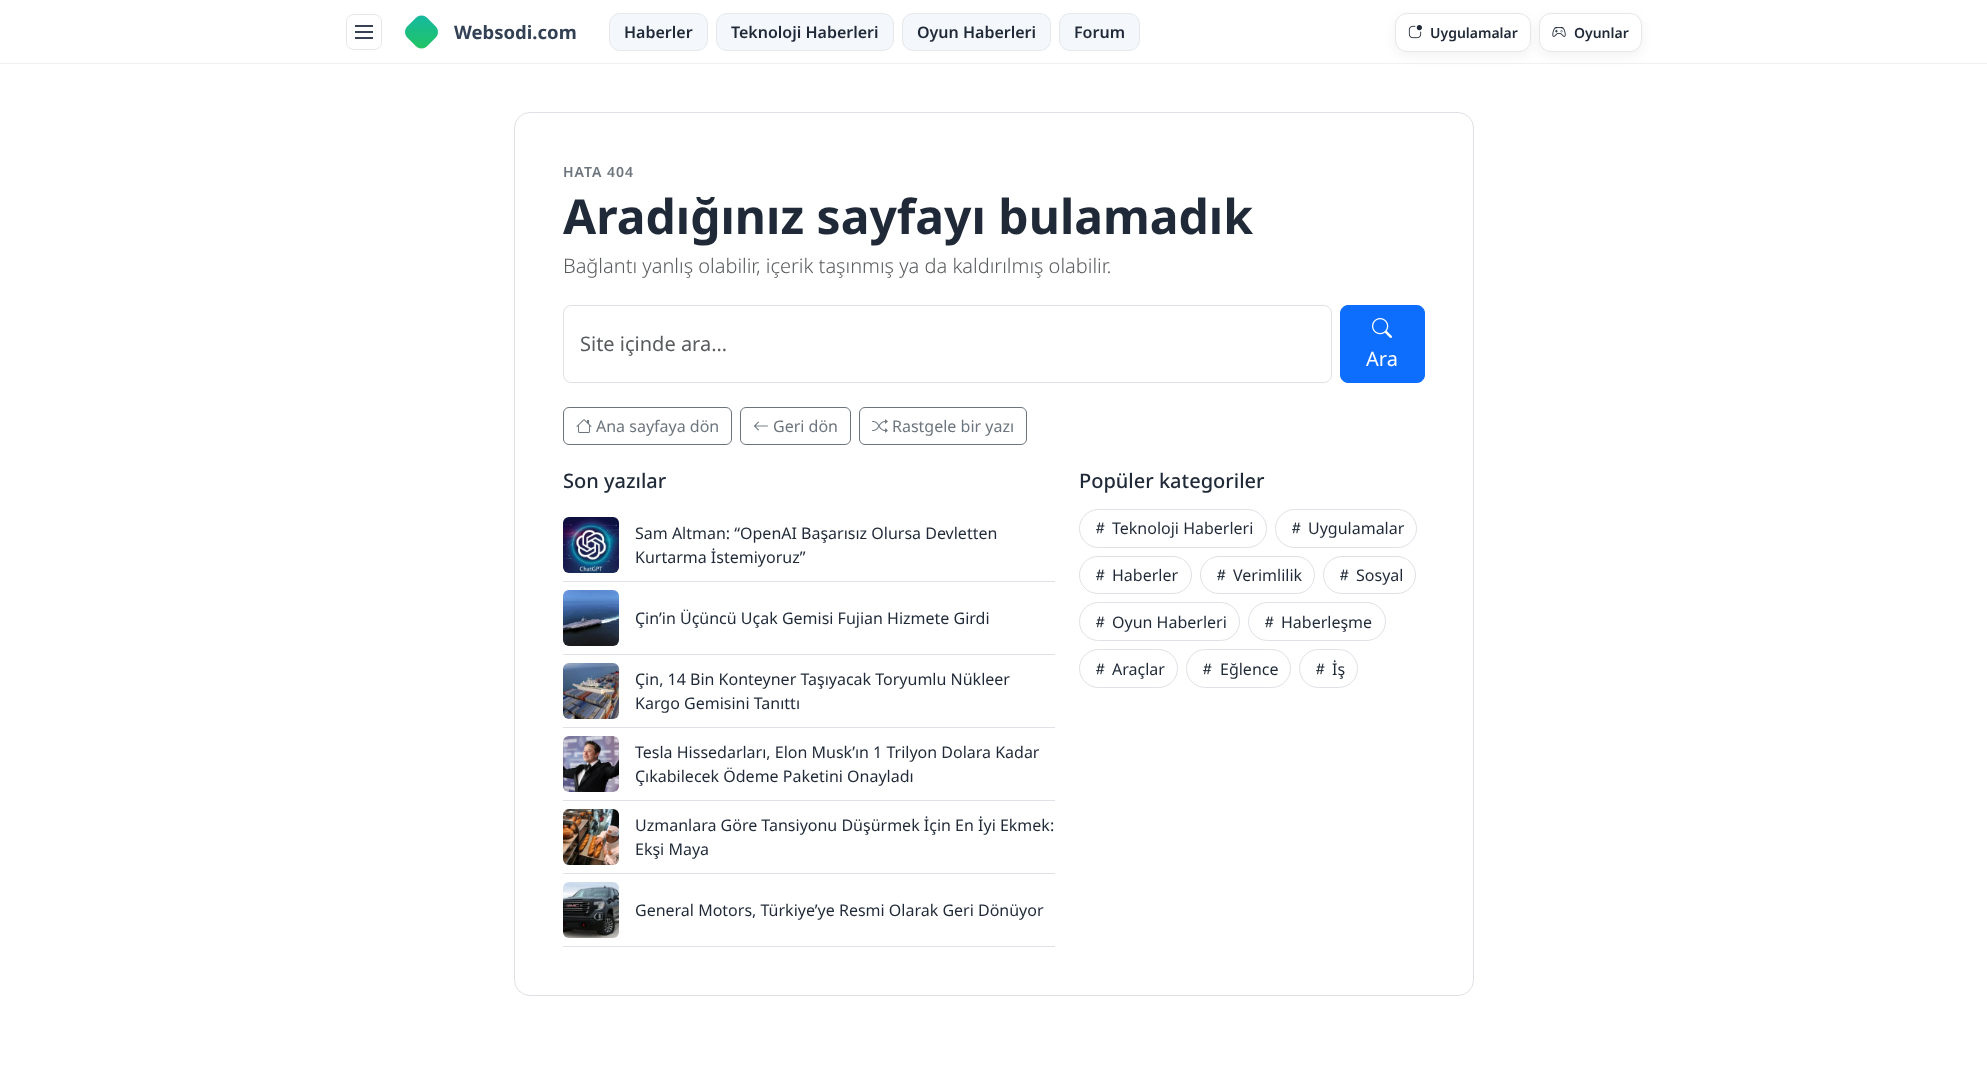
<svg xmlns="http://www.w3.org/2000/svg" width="1987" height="1078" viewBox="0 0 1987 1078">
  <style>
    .t1 { font: bold 18.5px Noto Sans; fill: #334155; }
    .t2 { font: 600 16px Noto Sans; fill: #1f2937; }
    .t3 { font: 600 14px Noto Sans; fill: #1f2937; }
    .t4 { font: 600 14px Noto Sans; letter-spacing: 1px; fill: #6c757d; }
    .t5 { font: bold 48px Noto Sans; fill: #1f2937; }
    .t6 { font: 300 20px Noto Sans; fill: #595c5f; }
    .t7 { font: 20px Noto Sans; fill: #595c5f; }
    .t8 { font: 20px Noto Sans; fill: #fff; }
    .t9 { font: 16px Noto Sans; fill: #6c757d; }
    .t10 { font: 500 20px Noto Sans; fill: #1f2937; }
    .t11 { font: 16px Noto Sans; fill: #1f2937; }
  </style>
  <rect width="100%" height="100%" fill="#fff"/>
  <rect x="0" y="63" width="1987" height="1" fill="#f0f0f0"/>
  <rect x="346.5" y="14.5" width="35" height="35" rx="7.5" fill="none" stroke="#e5e7eb"/>
  <rect x="355" y="31" width="18" height="2" fill="#374151"/>
  <rect x="355" y="25" width="18" height="2" fill="#374151"/>
  <rect x="355" y="37" width="18" height="2" fill="#374151"/>
  <image x="405" y="15" width="33" height="34" href="images/1.png"/>
  <text x="454" y="39" class="t1">Websodi.com</text>
  <rect x="609.5" y="13.5" width="98" height="37" rx="10.5" fill="#f4f7fb" stroke="#e5e7eb"/>
  <text x="624" y="38" class="t2">Haberler</text>
  <rect x="716.5" y="13.5" width="177" height="37" rx="10.5" fill="#f4f7fb" stroke="#e5e7eb"/>
  <text x="731" y="38" class="t2">Teknoloji Haberleri</text>
  <rect x="902.5" y="13.5" width="148" height="37" rx="10.5" fill="#f4f7fb" stroke="#e5e7eb"/>
  <text x="917" y="38" class="t2">Oyun Haberleri</text>
  <rect x="1059.5" y="13.5" width="80" height="37" rx="10.5" fill="#f4f7fb" stroke="#e5e7eb"/>
  <text x="1074" y="38" class="t2">Forum</text>
  <rect x="1395" y="17" width="136" height="39" rx="12" fill="#0208170d" filter="blur(6px)"/>
  <rect x="1395.5" y="13.5" width="135" height="38" rx="11.5" fill="#fff" stroke="#e5e7eb"/>
  <image x="1408" y="25" width="14" height="14" href="images/2.png"/>
  <text x="1430" y="38" class="t3">Uygulamalar</text>
  <rect x="1539" y="17" width="103" height="39" rx="12" fill="#0208170d" filter="blur(6px)"/>
  <rect x="1539.5" y="13.5" width="102" height="38" rx="11.5" fill="#fff" stroke="#e5e7eb"/>
  <image x="1552" y="26" width="14" height="11" href="images/3.png"/>
  <text x="1574" y="38" class="t3">Oyunlar</text>
  <rect x="514.5" y="112.5" width="959" height="883" rx="15.5" fill="none" stroke="#dee2e6"/>
  <text x="563" y="177" class="t4">HATA 404</text>
  <text x="563" y="234" class="t5">Aradığınız sayfayı bulamadık</text>
  <text x="563" y="273" class="t6">Bağlantı yanlış olabilir, içerik taşınmış ya da kaldırılmış olabilir.</text>
  <rect x="563.5" y="305.5" width="768" height="77" rx="7.5" fill="none" stroke="#dee2e6"/>
  <text x="580" y="351" class="t7">Site içinde ara…</text>
  <rect x="1340.5" y="305.5" width="84" height="77" rx="7.5" fill="#0d6efd" stroke="#0d6efd"/>
  <image x="1372" y="318" width="20" height="20" href="images/4.png"/>
  <text x="1366" y="366" class="t8">Ara</text>
  <rect x="563.5" y="407.5" width="168" height="37" rx="5.5" fill="none" stroke="#6c757d"/>
  <image x="576" y="419" width="16" height="14" href="images/5.png"/>
  <text x="596" y="432" class="t9">Ana sayfaya dön</text>
  <rect x="740.5" y="407.5" width="110" height="37" rx="5.5" fill="none" stroke="#6c757d"/>
  <image x="754" y="421" width="14" height="10" href="images/6.png"/>
  <text x="773" y="432" class="t9">Geri dön</text>
  <rect x="859.5" y="407.5" width="167" height="37" rx="5.5" fill="none" stroke="#6c757d"/>
  <image x="872" y="419" width="16" height="14" href="images/7.png"/>
  <text x="892" y="432" class="t9">Rastgele bir yazı</text>
  <text x="563" y="488" class="t10">Son yazılar</text>
  <rect x="563" y="581" width="492" height="1" fill="#dee2e6"/>
  <image x="563" y="517" width="56" height="56" href="images/8.png"/>
  <text x="635" y="539" class="t11">Sam Altman: “OpenAI Başarısız Olursa Devletten</text>
  <text x="635" y="563" class="t11">Kurtarma İstemiyoruz”</text>
  <rect x="563" y="654" width="492" height="1" fill="#dee2e6"/>
  <image x="563" y="590" width="56" height="56" href="images/9.png"/>
  <text x="635" y="624" class="t11">Çin’in Üçüncü Uçak Gemisi Fujian Hizmete Girdi</text>
  <rect x="563" y="727" width="492" height="1" fill="#dee2e6"/>
  <image x="563" y="663" width="56" height="56" href="images/10.png"/>
  <text x="635" y="685" class="t11">Çin, 14 Bin Konteyner Taşıyacak Toryumlu Nükleer</text>
  <text x="635" y="709" class="t11">Kargo Gemisini Tanıttı</text>
  <rect x="563" y="800" width="492" height="1" fill="#dee2e6"/>
  <image x="563" y="736" width="56" height="56" href="images/11.png"/>
  <text x="635" y="758" class="t11">Tesla Hissedarları, Elon Musk’ın 1 Trilyon Dolara Kadar</text>
  <text x="635" y="782" class="t11">Çıkabilecek Ödeme Paketini Onayladı</text>
  <rect x="563" y="873" width="492" height="1" fill="#dee2e6"/>
  <image x="563" y="809" width="56" height="56" href="images/12.png"/>
  <text x="635" y="831" class="t11">Uzmanlara Göre Tansiyonu Düşürmek İçin En İyi Ekmek:</text>
  <text x="635" y="855" class="t11">Ekşi Maya</text>
  <rect x="563" y="946" width="492" height="1" fill="#dee2e6"/>
  <image x="563" y="882" width="56" height="56" href="images/13.png"/>
  <text x="635" y="916" class="t11">General Motors, Türkiye’ye Resmi Olarak Geri Dönüyor</text>
  <text x="1079" y="488" class="t10">Popüler kategoriler</text>
  <rect x="1079.5" y="509.5" width="187" height="38" rx="19" fill="none" stroke="#dee2e6"/>
  <image x="1096" y="522" width="9" height="12" href="images/14.png"/>
  <text x="1112" y="534" class="t11">Teknoloji Haberleri</text>
  <rect x="1275.5" y="509.5" width="141" height="38" rx="19" fill="none" stroke="#dee2e6"/>
  <image x="1292" y="522" width="9" height="12" href="images/14.png"/>
  <text x="1308" y="534" class="t11">Uygulamalar</text>
  <rect x="1079.5" y="556.5" width="112" height="37" rx="18.5" fill="none" stroke="#dee2e6"/>
  <image x="1096" y="569" width="9" height="12" href="images/14.png"/>
  <text x="1112" y="581" class="t11">Haberler</text>
  <rect x="1200.5" y="556.5" width="114" height="37" rx="18.5" fill="none" stroke="#dee2e6"/>
  <image x="1217" y="569" width="9" height="12" href="images/14.png"/>
  <text x="1233" y="581" class="t11">Verimlilik</text>
  <rect x="1323.5" y="556.5" width="92" height="37" rx="18.5" fill="none" stroke="#dee2e6"/>
  <image x="1340" y="569" width="9" height="12" href="images/14.png"/>
  <text x="1356" y="581" class="t11">Sosyal</text>
  <rect x="1079.5" y="602.5" width="160" height="38" rx="19" fill="none" stroke="#dee2e6"/>
  <image x="1096" y="616" width="9" height="12" href="images/14.png"/>
  <text x="1112" y="628" class="t11">Oyun Haberleri</text>
  <rect x="1248.5" y="602.5" width="137" height="38" rx="19" fill="none" stroke="#dee2e6"/>
  <image x="1265" y="616" width="9" height="12" href="images/14.png"/>
  <text x="1281" y="628" class="t11">Haberleşme</text>
  <rect x="1079.5" y="649.5" width="98" height="38" rx="19" fill="none" stroke="#dee2e6"/>
  <image x="1096" y="663" width="9" height="12" href="images/14.png"/>
  <text x="1112" y="675" class="t11">Araçlar</text>
  <rect x="1186.5" y="649.5" width="104" height="38" rx="19" fill="none" stroke="#dee2e6"/>
  <image x="1203" y="663" width="9" height="12" href="images/14.png"/>
  <text x="1220" y="675" class="t11">Eğlence</text>
  <rect x="1299.5" y="649.5" width="58" height="38" rx="19" fill="none" stroke="#dee2e6"/>
  <image x="1316" y="663" width="9" height="12" href="images/14.png"/>
  <text x="1332" y="675" class="t11">İş</text>
</svg>
